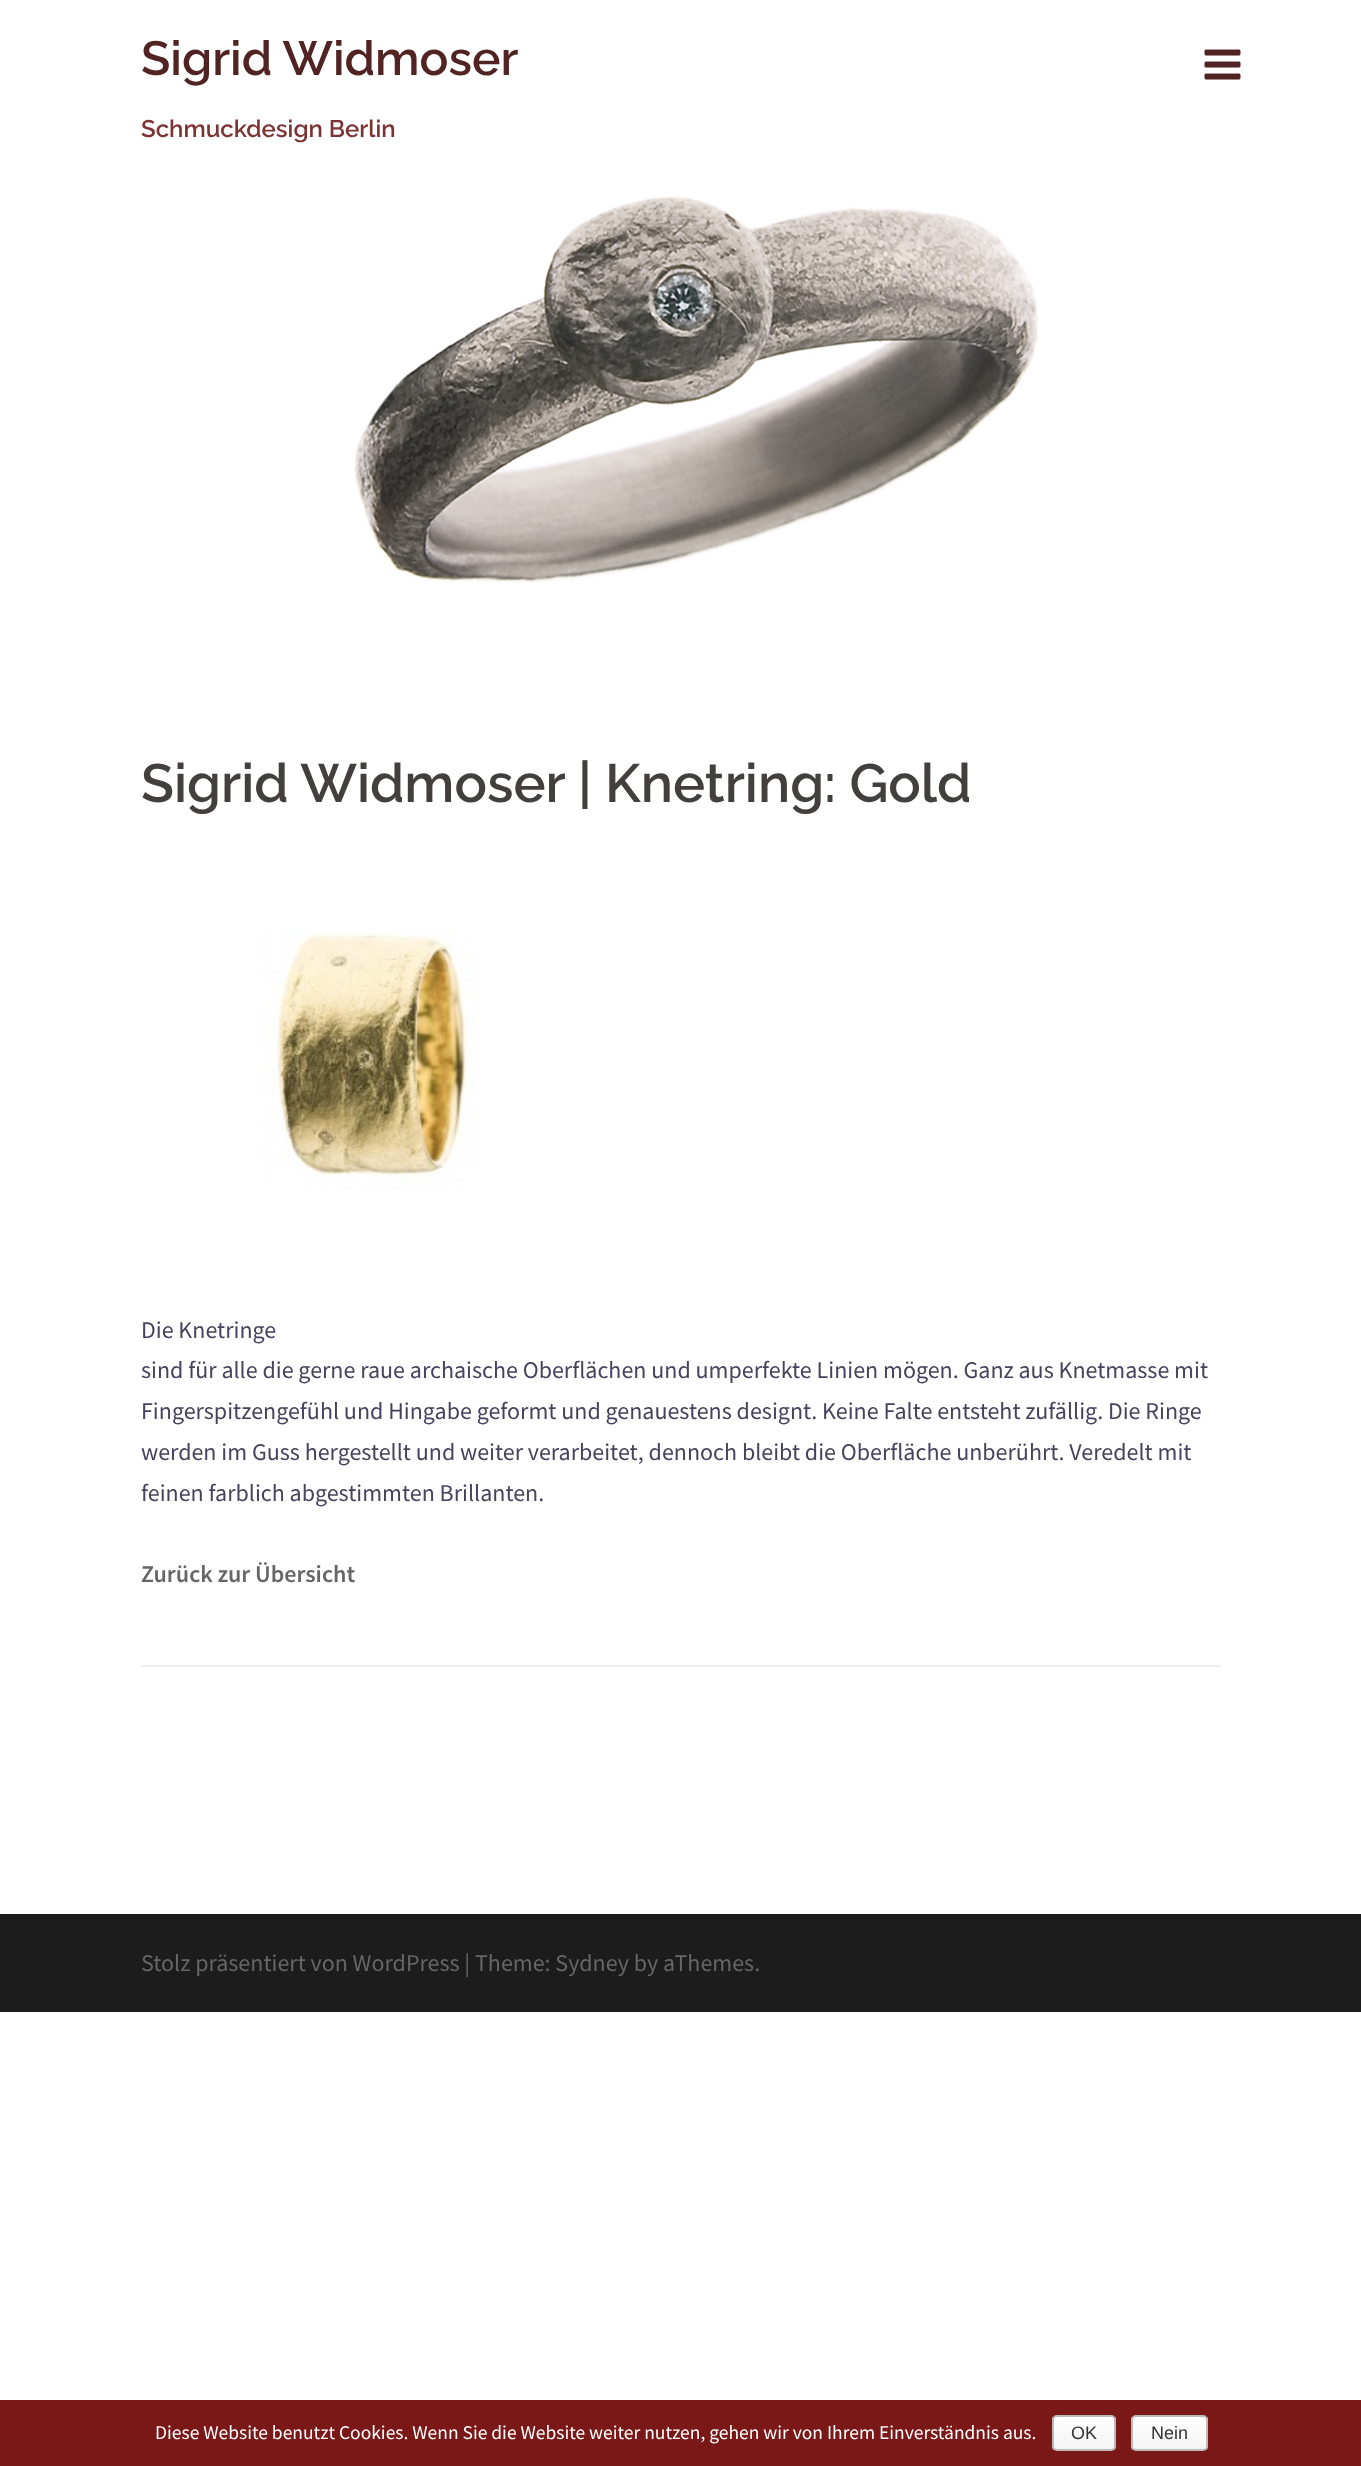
<svg xmlns="http://www.w3.org/2000/svg" width="1361" height="2466" viewBox="0 0 1361 2466">
  <style>
    .t1 { font: 600 48px Raleway; fill: #512323; }
    .t2 { font: 600 24px Raleway; fill: #7c3333; }
    .t3 { font: 600 54px Raleway; fill: #443f3f; }
    .t4 { font: 24px Source Sans Pro; fill: #47425d; }
    .t5 { font: 600 24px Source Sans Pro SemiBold; fill: #666; }
    .t6 { font: 24px Source Sans Pro; fill: #666; }
    .t7 { font: 19.5px Source Sans Pro; fill: #fff; }
    .t8 { font: 18px Liberation Sans; fill: #333; }
  </style>
  <defs>
    <clipPath id="clip1"><rect x="1052" y="2415" width="64" height="36" rx="5"/></clipPath>
    <linearGradient id="g1" gradientUnits="userSpaceOnUse" x1="1084" y1="2417" x2="1084" y2="2450"><stop offset="0" stop-color="#fefefe"/><stop offset="1" stop-color="#f4f4f4"/></linearGradient>
    <clipPath id="clip2"><rect x="1131" y="2415" width="77" height="36" rx="5"/></clipPath>
    <linearGradient id="g2" gradientUnits="userSpaceOnUse" x1="1169" y1="2417" x2="1169" y2="2450"><stop offset="0" stop-color="#fefefe"/><stop offset="1" stop-color="#f4f4f4"/></linearGradient>
  </defs>
  <rect width="100%" height="100%" fill="#fff"/>
  <text x="141" y="75" class="t1">Sigrid Widmoser</text>
  <text x="141" y="137" class="t2">Schmuckdesign Berlin</text>
  <image x="1204" y="49" width="37" height="31" href="images/1.png"/>
  <image x="353" y="196" width="685" height="387" href="images/2.png"/>
  <text x="141" y="802" class="t3">Sigrid Widmoser | Knetring: Gold</text>
  <image x="261" y="931" width="216" height="258" href="images/3.png"/>
  <text x="141" y="1338" class="t4">Die Knetringe</text>
  <text x="141" y="1378" class="t4">sind für alle die gerne raue archaische Oberflächen und umperfekte Linien mögen. Ganz aus Knetmasse mit</text>
  <text x="141" y="1419" class="t4">Fingerspitzengefühl und Hingabe geformt und genauestens designt. Keine Falte entsteht zufällig. Die Ringe</text>
  <text x="141" y="1460" class="t4">werden im Guss hergestellt und weiter verarbeitet, dennoch bleibt die Oberfläche unberührt. Veredelt mit</text>
  <text x="141" y="1501" class="t4">feinen farblich abgestimmten Brillanten.</text>
  <text x="141" y="1582" class="t5">Zurück zur Übersicht</text>
  <rect x="141" y="1665" width="1080" height="2" fill="#eee"/>
  <rect x="0" y="1914" width="1361" height="98" fill="#1c1c1c"/>
  <text x="141" y="1971" class="t6">Stolz präsentiert von WordPress | Theme: Sydney by aThemes.</text>
  <rect x="0" y="2400" width="1361" height="66" fill="#7a1717"/>
  <text x="155" y="2439" class="t7">Diese Website benutzt Cookies. Wenn Sie die Website weiter nutzen, gehen wir von Ihrem Einverständnis aus.</text>
  <g clip-path="url(#clip1)">
    <rect x="1052" y="2417" width="64" height="33" fill="url(#g1)"/>
  </g>
  <rect x="1053" y="2416" width="62" height="34" rx="4" fill="none" stroke="#bbb" stroke-width="2"/>
  <text x="1071" y="2439" class="t8">OK</text>
  <g clip-path="url(#clip2)">
    <rect x="1131" y="2417" width="77" height="33" fill="url(#g2)"/>
  </g>
  <rect x="1132" y="2416" width="75" height="34" rx="4" fill="none" stroke="#bbb" stroke-width="2"/>
  <text x="1151" y="2439" class="t8">Nein</text>
</svg>
